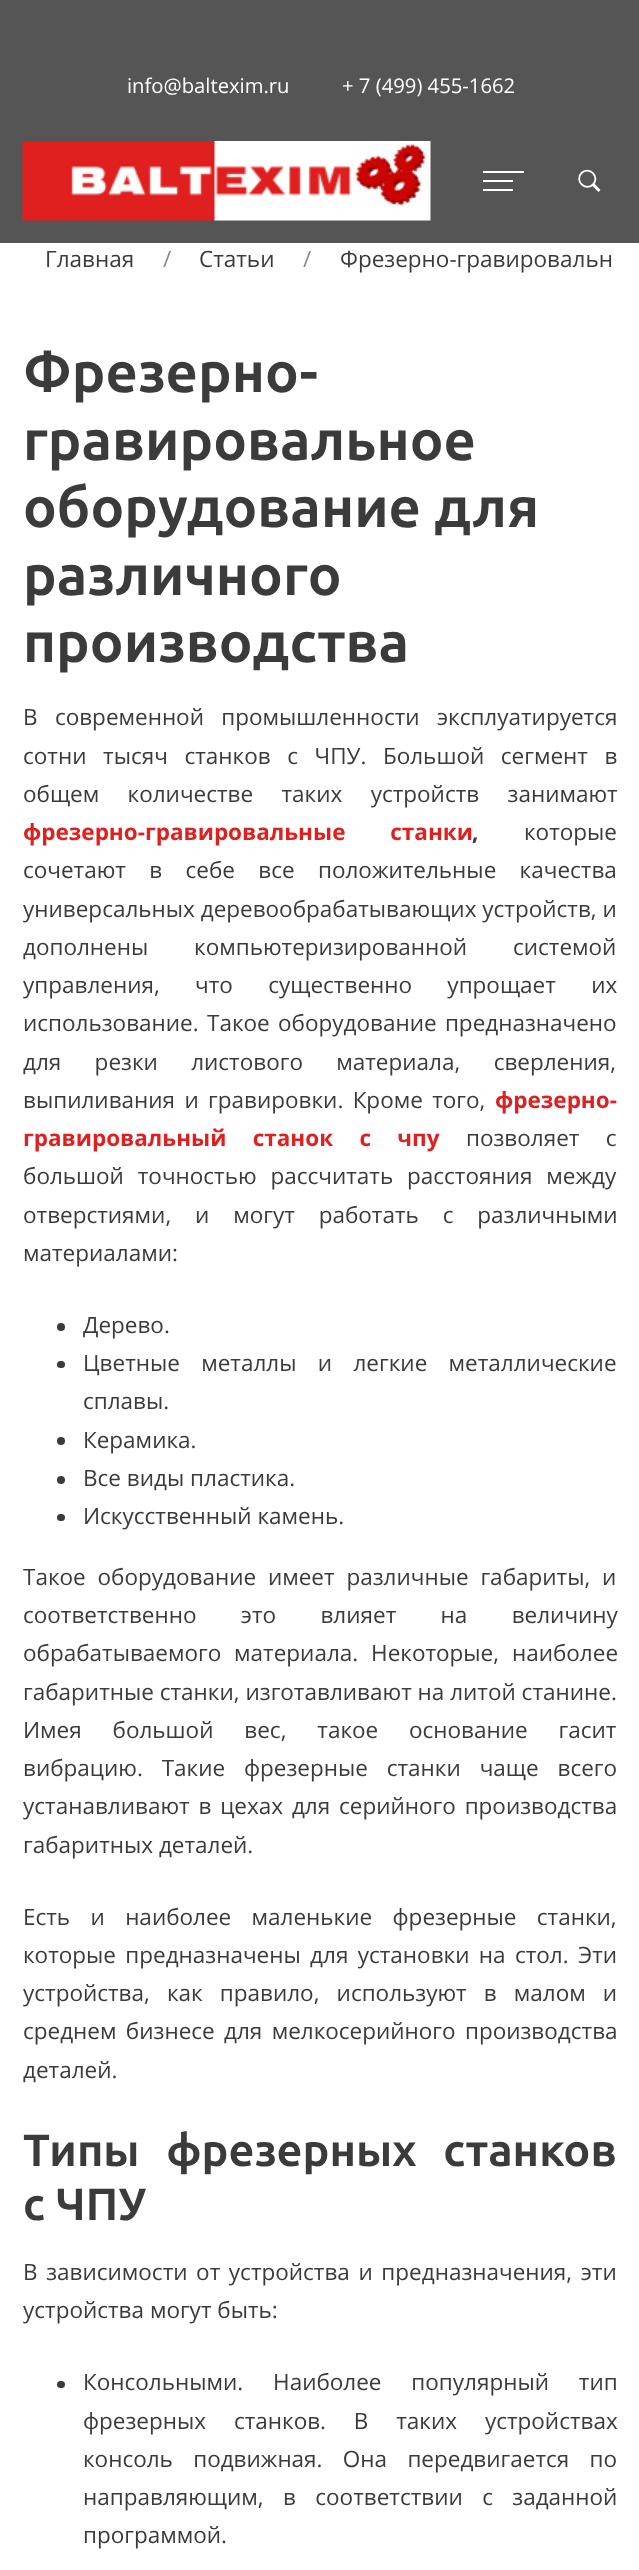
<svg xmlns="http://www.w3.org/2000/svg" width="639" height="2570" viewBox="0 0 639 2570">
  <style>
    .t1 { font: 20.25px Open Sans; fill: #fff; }
    .t2 { font: 22.5px Open Sans; fill: #3b3b3b; }
    .t3 { font: 22.5px Open Sans; fill: #898989; }
    .t4 { font: bold 56.25px Ubuntu; fill: #3b3b3b; }
    .t5 { font: bold 22.5px Open Sans; fill: #e01f1f; }
    .t6 { font: bold 22.5px Open Sans; fill: #3b3b3b; }
    .t7 { font: bold 45px Ubuntu; fill: #3b3b3b; }
  </style>
  <rect width="100%" height="100%" fill="#fff"/>
  <rect x="0" y="0" width="639" height="243" fill="#555"/>
  <image x="22" y="141" width="409" height="80" href="images/1.png"/>
  <rect x="483" y="171" width="41" height="2" fill="#fff"/>
  <rect x="483" y="180" width="30" height="2" fill="#fff"/>
  <rect x="483" y="189" width="30" height="2" fill="#fff"/>
  <path d="M581.5 173C589 165.5 600.5 177 593 184.5C585.5 192 574 180.5 581.5 173Z" fill="none" stroke="#fff" stroke-width="1.8"/>
  <path d="M592 185.5L594.5 183.5L600.5 190L598.5 192Z" fill="#fff"/>
  <text x="127" y="93" class="t1">info@baltexim.ru</text>
  <text x="342" y="93" class="t1">+ 7 (499) 455-1662</text>
  <text x="45" y="267" class="t2">Главная</text>
  <text x="163" y="267" class="t3">/</text>
  <text x="199" y="267" class="t2">Статьи</text>
  <text x="303" y="267" class="t3">/</text>
  <text x="340" y="267" class="t2">Фрезерно-гравировальн</text>
  <text x="23" y="392" class="t4">Фрезерно-</text>
  <text x="23" y="460" class="t4">гравировальное</text>
  <text x="23" y="527" class="t4">оборудование для</text>
  <text x="23" y="595" class="t4">различного</text>
  <text x="23" y="662" class="t4">производства</text>
  <text x="23" y="725" word-spacing="11.5" class="t2">В современной промышленности эксплуатируется</text>
  <text x="23" y="764" word-spacing="10.75" class="t2">сотни тысяч станков с ЧПУ. Большой сегмент в</text>
  <text x="23" y="802" word-spacing="22.5" class="t2">общем количестве таких устройств занимают</text>
  <text x="23" y="840" word-spacing="39" class="t5">фрезерно-гравировальные станки</text>
  <text x="472" y="840" class="t6">,</text>
  <text x="524" y="840" class="t2">которые</text>
  <text x="23" y="878" word-spacing="17.5" class="t2">сочетают в себе все положительные качества</text>
  <text x="23" y="917" class="t2">универсальных деревообрабатывающих устройств, и</text>
  <text x="23" y="955" word-spacing="40" class="t2">дополнены компьютеризированной системой</text>
  <text x="23" y="993" word-spacing="29.5" class="t2">управления, что существенно упрощает их</text>
  <text x="23" y="1031" word-spacing="2.5" class="t2">использование. Такое оборудование предназначено</text>
  <text x="23" y="1070" word-spacing="27.5" class="t2">для резки листового материала, сверления,</text>
  <text x="23" y="1108" word-spacing="3.5" class="t2">выпиливания и гравировки. Кроме того,</text>
  <text x="495" y="1108" class="t5">фрезерно-</text>
  <text x="23" y="1146" word-spacing="20.5" class="t5">гравировальный станок с чпу</text>
  <text x="466" y="1146" word-spacing="20.5" class="t2">позволяет с</text>
  <text x="23" y="1184" word-spacing="8" class="t2">большой точностью рассчитать расстояния между</text>
  <text x="23" y="1223" word-spacing="18" class="t2">отверстиями, и могут работать с различными</text>
  <text x="23" y="1261" class="t2">материалами:</text>
  <circle cx="61" cy="1327" r="4" fill="#3b3b3b"/>
  <text x="83" y="1333" class="t2">Дерево.</text>
  <rect x="57" y="1361" width="8" height="7" rx="3.5" fill="#3b3b3b"/>
  <text x="83" y="1371" word-spacing="15.5" class="t2">Цветные металлы и легкие металлические</text>
  <text x="83" y="1409" class="t2">сплавы.</text>
  <circle cx="61" cy="1441" r="4" fill="#3b3b3b"/>
  <text x="83" y="1448" class="t2">Керамика.</text>
  <circle cx="61" cy="1480" r="4" fill="#3b3b3b"/>
  <text x="83" y="1486" class="t2">Все виды пластика.</text>
  <rect x="57" y="1514" width="8" height="7" rx="3.5" fill="#3b3b3b"/>
  <text x="83" y="1524" class="t2">Искусственный камень.</text>
  <text x="23" y="1585" word-spacing="6" class="t2">Такое оборудование имеет различные габариты, и</text>
  <text x="23" y="1623" word-spacing="38.5" class="t2">соответственно это влияет на величину</text>
  <text x="23" y="1661" word-spacing="7" class="t2">обрабатываемого материала. Некоторые, наиболее</text>
  <text x="23" y="1700" class="t2">габаритные станки, изготавливают на литой станине.</text>
  <text x="23" y="1738" word-spacing="25" class="t2">Имея большой вес, такое основание гасит</text>
  <text x="23" y="1776" word-spacing="13" class="t2">вибрацию. Такие фрезерные станки чаще всего</text>
  <text x="23" y="1814" word-spacing="3" class="t2">устанавливают в цехах для серийного производства</text>
  <text x="23" y="1853" class="t2">габаритных деталей.</text>
  <text x="23" y="1925" word-spacing="14.5" class="t2">Есть и наиболее маленькие фрезерные станки,</text>
  <text x="23" y="1963" word-spacing="3.5" class="t2">которые предназначены для установки на стол. Эти</text>
  <text x="23" y="2001" word-spacing="11.25" class="t2">устройства, как правило, используют в малом и</text>
  <text x="23" y="2039" word-spacing="3.5" class="t2">среднем бизнесе для мелкосерийного производства</text>
  <text x="23" y="2078" class="t2">деталей.</text>
  <text x="23" y="2166" word-spacing="16" class="t7">Типы фрезерных станков</text>
  <text x="23" y="2220" class="t7">с ЧПУ</text>
  <text x="23" y="2280" word-spacing="2.75" class="t2">В зависимости от устройства и предназначения, эти</text>
  <text x="23" y="2318" class="t2">устройства могут быть:</text>
  <rect x="57" y="2381" width="8" height="7" rx="3.5" fill="#3b3b3b"/>
  <text x="83" y="2390" word-spacing="24" class="t2">Консольными. Наиболее популярный тип</text>
  <text x="83" y="2429" word-spacing="22" class="t2">фрезерных станков. В таких устройствах</text>
  <text x="83" y="2467" word-spacing="14.5" class="t2">консоль подвижная. Она передвигается по</text>
  <text x="83" y="2505" word-spacing="13.5" class="t2">направляющим, в соответствии с заданной</text>
  <text x="83" y="2543" class="t2">программой.</text>
</svg>
